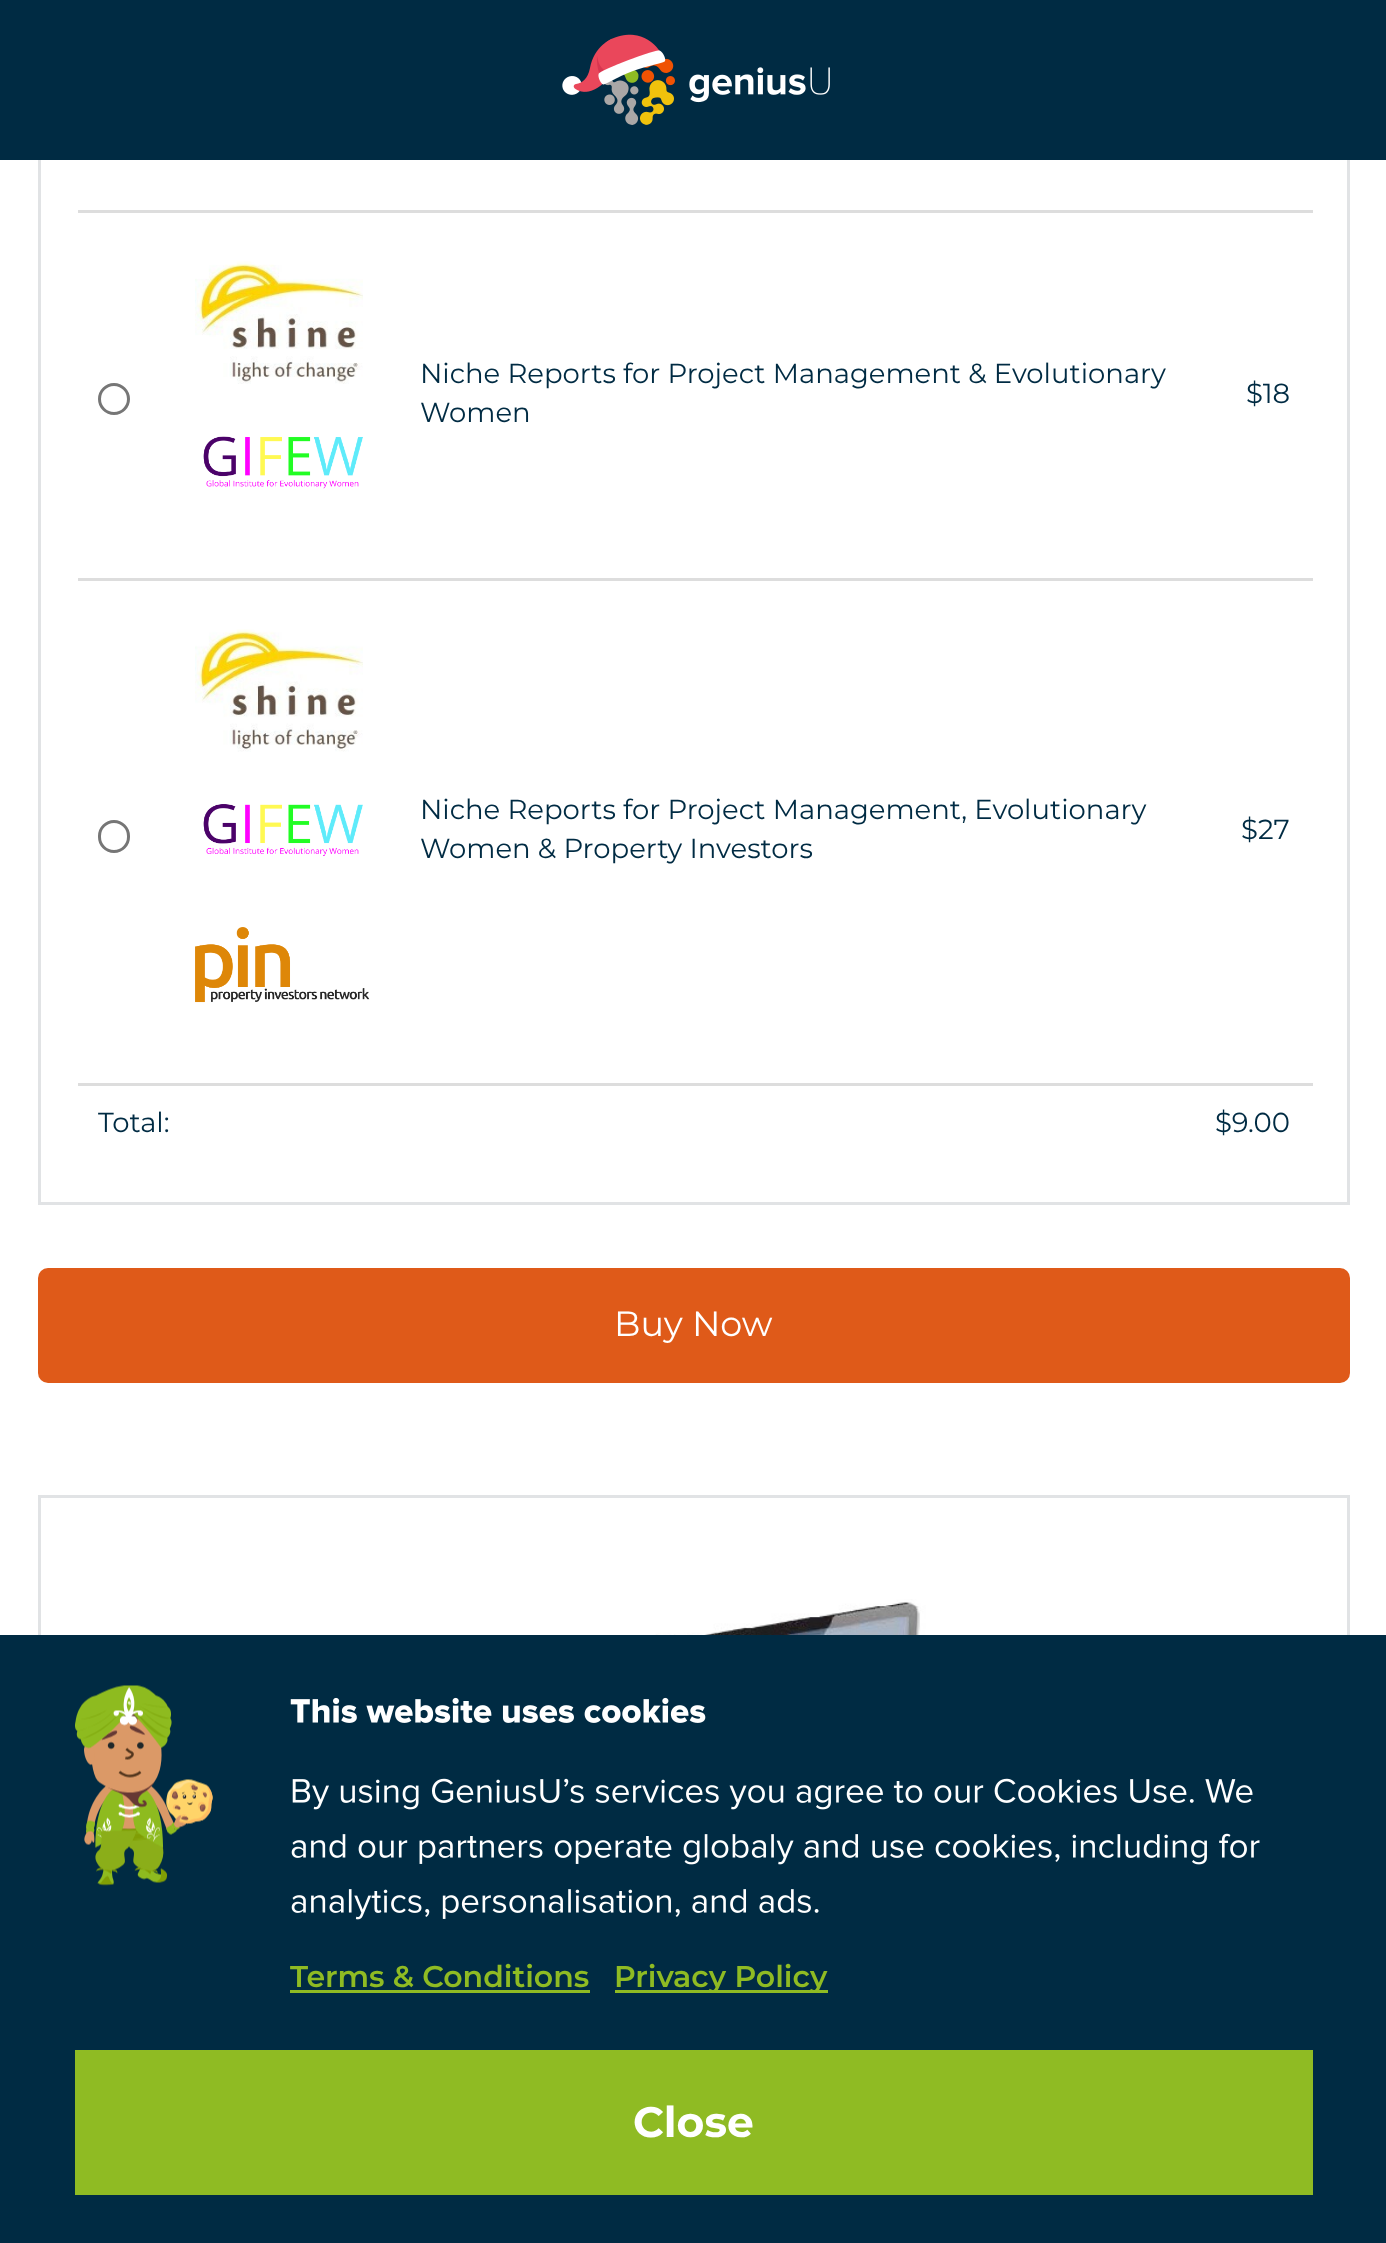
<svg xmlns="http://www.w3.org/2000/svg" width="1386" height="2243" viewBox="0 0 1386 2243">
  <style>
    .t1 { font: 27.5px Montserrat; fill: #002b43; }
    .t2 { font: 35px Montserrat; fill: #fff; }
    .t3 { font: 600 30px Montserrat; fill: #8fbb23; }
    .t4 { font: bold 42.5px Montserrat; fill: #fff; }
  </style>
  <rect width="100%" height="100%" fill="#fff"/>
  <rect x="39.5" y="-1.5" width="1309" height="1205" fill="none" stroke="#e1e3e5" stroke-width="3"/>
  <rect x="0" y="0" width="1386" height="160" fill="#002b43"/>
  <image x="562" y="34" width="268" height="91" href="images/1.png"/>
  <circle cx="114" cy="399" r="14.5" fill="none" stroke="#767676" stroke-width="3"/>
  <image x="195" y="261" width="168" height="123" href="images/2.png"/>
  <image x="203" y="436" width="160" height="53" href="images/3.png"/>
  <text x="420" y="383" class="t1">Niche Reports for Project Management &amp; Evolutionary</text>
  <text x="420" y="422" class="t1">Women</text>
  <rect x="78" y="210" width="1235" height="3" fill="#ddd"/>
  <text x="1246" y="403" class="t1">$18</text>
  <rect x="99.5" y="821.5" width="29" height="30" rx="14.5" fill="none" stroke="#767676" stroke-width="3"/>
  <image x="195" y="629" width="168" height="123" href="images/4.png"/>
  <image x="203" y="804" width="160" height="52" href="images/5.png"/>
  <image x="195" y="927" width="175" height="76" href="images/6.png"/>
  <text x="420" y="819" class="t1">Niche Reports for Project Management, Evolutionary</text>
  <text x="420" y="858" class="t1">Women &amp; Property Investors</text>
  <rect x="78" y="578" width="1235" height="3" fill="#ddd"/>
  <text x="1241" y="839" class="t1">$27</text>
  <text x="98" y="1132" class="t1">Total:</text>
  <rect x="78" y="1083" width="1235" height="3" fill="#ddd"/>
  <text x="1215" y="1132" class="t1">$9.00</text>
  <rect x="38" y="1268" width="1312" height="115" rx="10" fill="#df5a19"/>
  <text x="614" y="1336" class="t2">Buy Now</text>
  <rect x="39.5" y="1496.5" width="1309" height="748" fill="none" stroke="#e1e3e5" stroke-width="3"/>
  <image x="135" y="1599" width="1099" height="36" href="images/7.png"/>
  <rect x="0" y="1635" width="1386" height="608" fill="#002b43"/>
  <image x="75" y="1685" width="138" height="201" href="images/8.png"/>
  <image x="290" y="1697" width="416" height="26" href="images/9.png"/>
  <image x="292" y="1778" width="961" height="32" href="images/10.png"/>
  <image x="291" y="1833" width="969" height="32" href="images/11.png"/>
  <image x="291" y="1889" width="528" height="31" href="images/12.png"/>
  <text x="290" y="1987" class="t3">Terms &amp; Conditions</text>
  <rect x="290" y="1990" width="300" height="3" fill="#8fbb23"/>
  <rect x="615" y="1990" width="213" height="3" fill="#8fbb23"/>
  <text x="614" y="1987" class="t3">Privacy Policy</text>
  <rect x="75" y="2050" width="1238" height="145" fill="#8fbb23"/>
  <text x="633" y="2137" class="t4">Close</text>
</svg>
